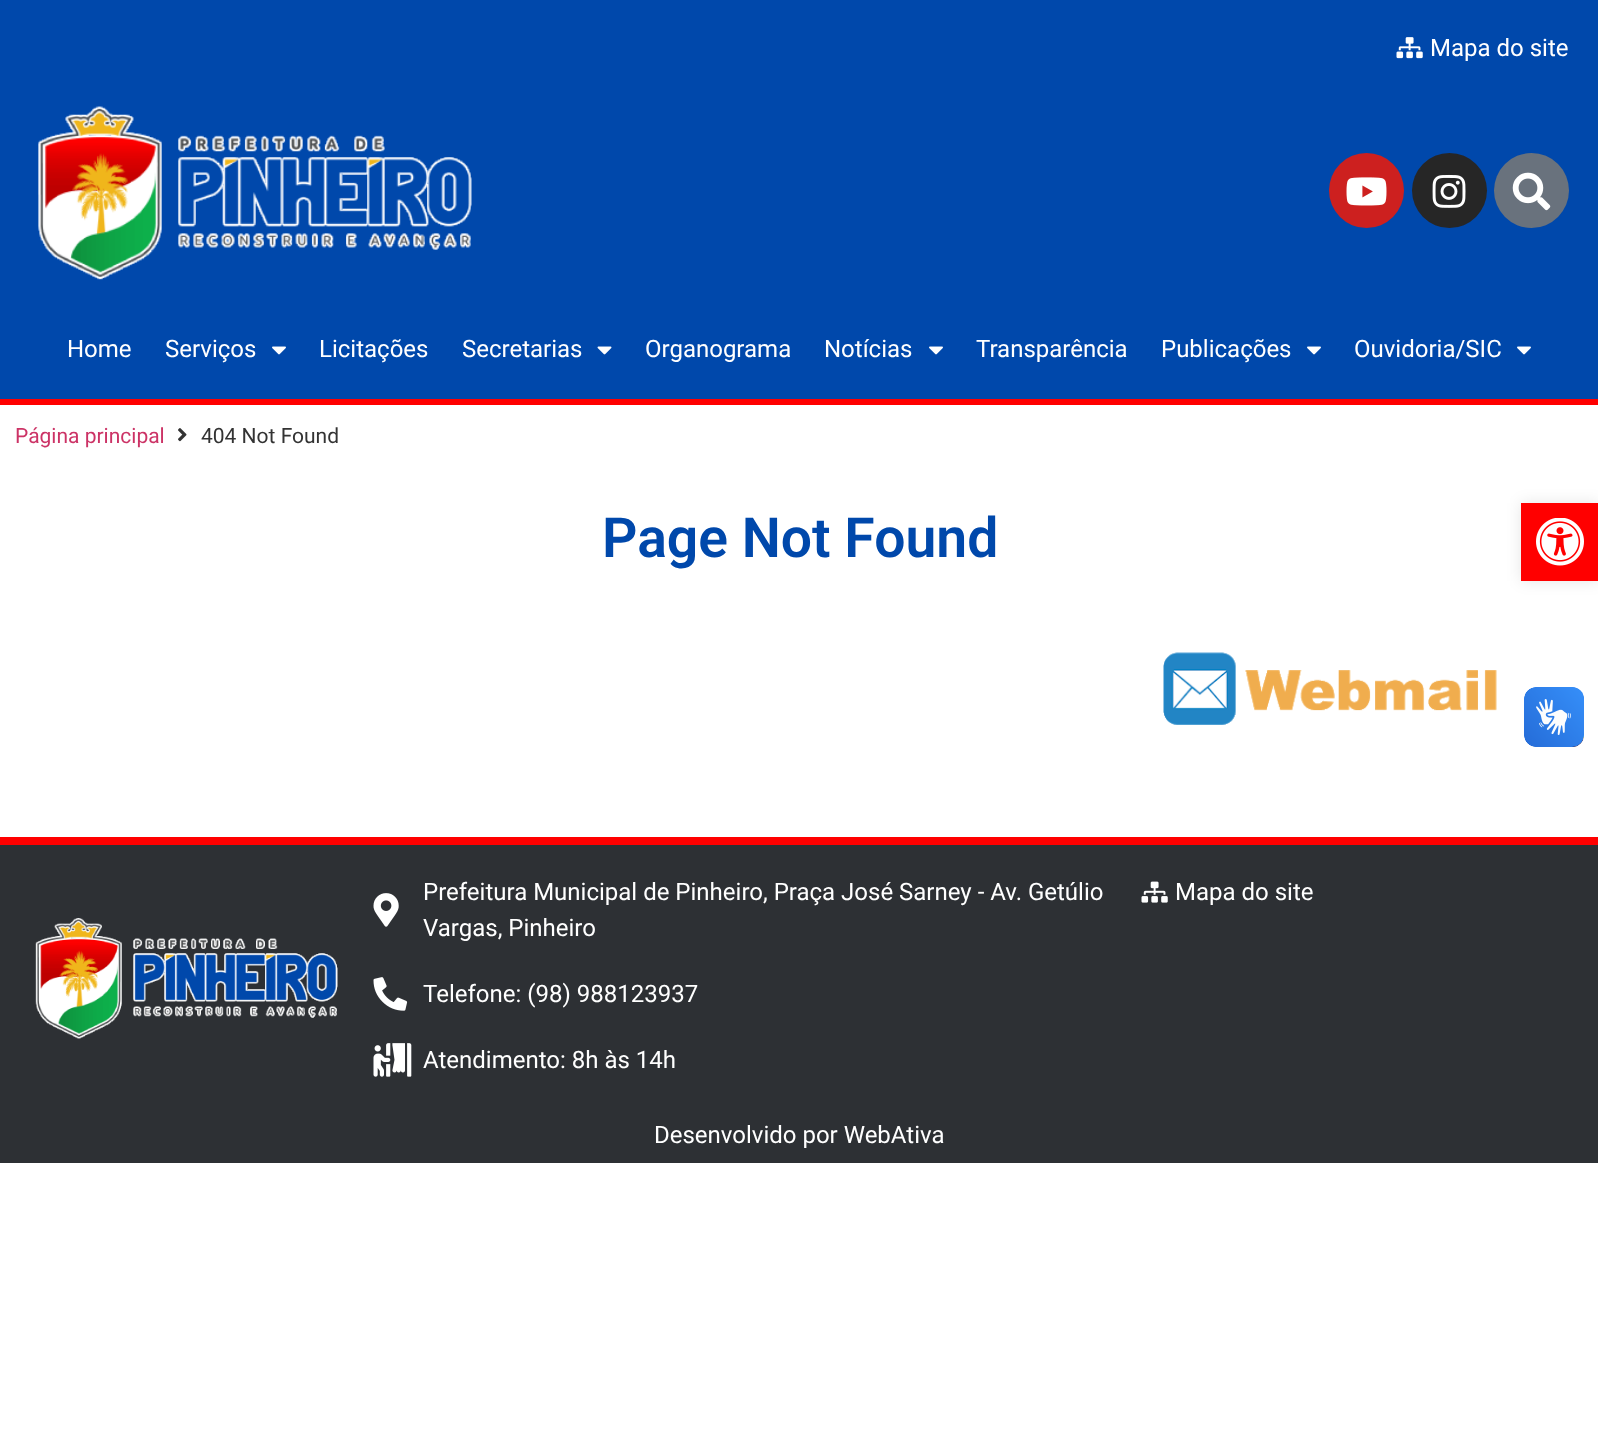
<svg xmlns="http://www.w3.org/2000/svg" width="1598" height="1433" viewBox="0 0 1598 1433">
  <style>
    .t1 { font: 24px Roboto; fill: #fff; }
    .t2 { font: 21px Roboto; fill: #c36; }
    .t3 { font: 21px Roboto; fill: #333; }
    .t4 { font: 600 55.25px Roboto; fill: #0048ab; }
  </style>
  <rect width="100%" height="100%" fill="#fff"/>
  <rect x="0" y="0" width="1598" height="399" fill="#0048ab"/>
  <rect x="0" y="399" width="1598" height="6" fill="#f00"/>
  <image x="1396" y="37" width="27" height="22" href="images/1.png"/>
  <text x="1430" y="56" class="t1">Mapa do site</text>
  <image x="38" y="106" width="434" height="174" href="images/2.png"/>
  <circle cx="1366.5" cy="190.5" r="37.5" fill="#cd201f"/>
  <image x="1346" y="177" width="41" height="29" href="images/3.png"/>
  <circle cx="1449.5" cy="190.5" r="37.5" fill="#262626"/>
  <image x="1432" y="174" width="34" height="34" href="images/4.png"/>
  <circle cx="1531.5" cy="190.5" r="37.5" fill="#69727d"/>
  <image x="1512" y="172" width="39" height="39" href="images/5.png"/>
  <text x="67" y="357" class="t1">Home</text>
  <text x="165" y="357" class="t1">Serviços</text>
  <image x="272" y="346" width="14" height="9" href="images/6.png"/>
  <text x="319" y="357" class="t1">Licitações</text>
  <text x="462" y="357" class="t1">Secretarias</text>
  <image x="597" y="346" width="15" height="9" href="images/7.png"/>
  <text x="645" y="357" class="t1">Organograma</text>
  <text x="824" y="357" class="t1">Notícias</text>
  <image x="929" y="346" width="14" height="9" href="images/6.png"/>
  <text x="976" y="357" class="t1">Transparência</text>
  <text x="1161" y="357" class="t1">Publicações</text>
  <image x="1307" y="346" width="14" height="9" href="images/6.png"/>
  <text x="1354" y="357" class="t1">Ouvidoria/SIC</text>
  <image x="1517" y="346" width="14" height="9" href="images/6.png"/>
  <text x="15" y="443" class="t2">Página principal</text>
  <image x="178" y="428" width="9" height="14" href="images/8.png"/>
  <text x="201" y="443" class="t3">404 Not Found</text>
  <text x="602" y="557" class="t4">Page Not Found</text>
  <image x="1163" y="652" width="334" height="73" href="images/9.png"/>
  <rect x="1521" y="503" width="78" height="78" fill="#0000001a" filter="blur(7.5px)"/>
  <rect x="1521" y="503" width="77" height="78" fill="#f00"/>
  <image x="1536" y="518" width="48" height="48" href="images/10.png"/>
  <image x="1524" y="687" width="60" height="60" href="images/11.png"/>
  <image x="1524" y="687" width="60" height="60" href="images/12.png"/>
  <rect x="0" y="845" width="1598" height="318" fill="#2d3034"/>
  <rect x="0" y="837" width="1598" height="8" fill="#f00"/>
  <image x="373" y="893" width="26" height="34" href="images/13.png"/>
  <text x="423" y="900" class="t1">Prefeitura Municipal de Pinheiro, Praça José Sarney - Av. Getúlio</text>
  <text x="423" y="936" class="t1">Vargas, Pinheiro</text>
  <image x="373" y="977" width="35" height="34" href="images/14.png"/>
  <text x="423" y="1002" class="t1">Telefone: (98) 988123937</text>
  <image x="373" y="1043" width="39" height="34" href="images/15.png"/>
  <text x="423" y="1068" class="t1">Atendimento: 8h às 14h</text>
  <image x="1141" y="881" width="27" height="22" href="images/16.png"/>
  <text x="1175" y="900" class="t1">Mapa do site</text>
  <image x="35" y="918" width="303" height="121" href="images/17.png"/>
  <text x="654" y="1143" class="t1">Desenvolvido por WebAtiva</text>
</svg>
